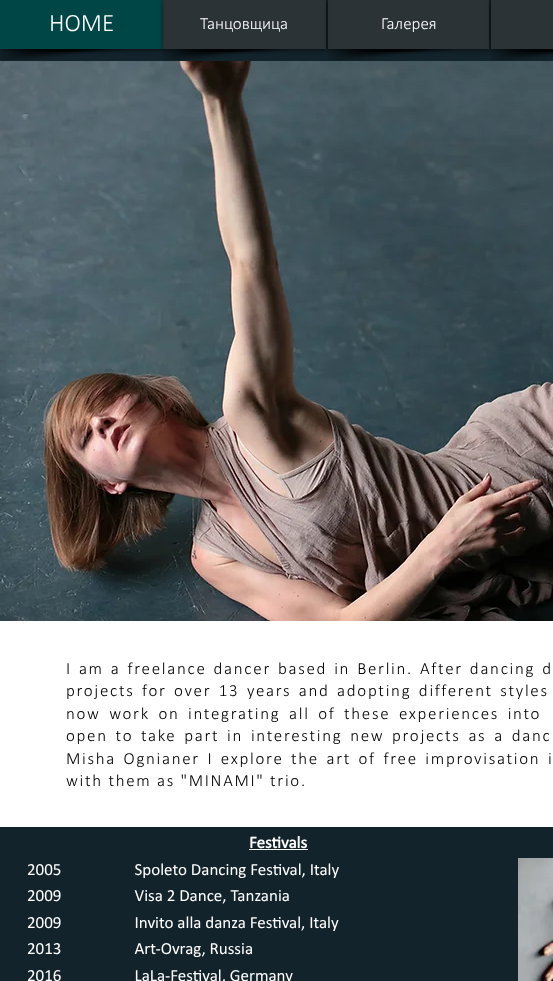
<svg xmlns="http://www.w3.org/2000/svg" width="553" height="981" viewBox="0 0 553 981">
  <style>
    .t1 { font: 300 25px Calibri; fill: #fff; }
    .t2 { font: 300 17px Calibri; fill: #fff; }
    .t3 { font: 300 17px Calibri; letter-spacing: 1.7px; fill: #000; }
    .t4 { font: bold 17px Calibri; fill: #fff; }
    .t5 { font: 17px Calibri; fill: #fff; }
  </style>
  <defs>
    <clipPath id="clip1"><path d="M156 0H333V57H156ZM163 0H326V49H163Z" clip-rule="evenodd"/></clipPath>
    <clipPath id="clip2"><path d="M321 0H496V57H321ZM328 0H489V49H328Z" clip-rule="evenodd"/></clipPath>
    <clipPath id="clip3"><path d="M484 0H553V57H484ZM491 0H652V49H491Z" clip-rule="evenodd"/></clipPath>
  </defs>
  <rect width="100%" height="100%" fill="#13232b"/>
  <image x="0" y="49" width="125" height="12" href="images/1.png"/>
  <rect x="0" y="1" width="163" height="49" fill="#00000099" filter="blur(2px)"/>
  <rect x="0" y="0" width="163" height="49" fill="#014647"/>
  <text x="49" y="31" class="t1">HOME</text>
  <image x="163" y="49" width="125" height="12" href="images/2.png"/>
  <g clip-path="url(#clip1)">
    <rect x="163" y="1" width="163" height="49" fill="#00000099" filter="blur(2px)"/>
  </g>
  <rect x="163" y="0" width="163" height="49" fill="#4141418f"/>
  <text x="200" y="29" class="t2">Танцовщица</text>
  <image x="328" y="49" width="125" height="12" href="images/3.png"/>
  <g clip-path="url(#clip2)">
    <rect x="328" y="1" width="161" height="49" fill="#00000099" filter="blur(2px)"/>
  </g>
  <rect x="328" y="0" width="161" height="49" fill="#4141418f"/>
  <text x="381" y="29" class="t2">Галерея</text>
  <image x="491" y="49" width="62" height="12" href="images/4.png"/>
  <g clip-path="url(#clip3)">
    <rect x="491" y="1" width="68" height="49" fill="#00000099" filter="blur(2px)"/>
  </g>
  <rect x="491" y="0" width="62" height="49" fill="#4141418f"/>
  <image x="0" y="61" width="553" height="560" href="images/5.png"/>
  <rect x="0" y="621" width="553" height="206" fill="#fff"/>
  <text x="66" y="674" word-spacing="1.5" class="t3">I am a freelance dancer based in Berlin. After dancing d</text>
  <text x="66" y="696" word-spacing="2" class="t3">projects for over 13 years and adopting different styles</text>
  <text x="66" y="719" word-spacing="3" class="t3">now work on integrating all of these experiences into</text>
  <text x="66" y="741" word-spacing="2.25" class="t3">open to take part in interesting new projects as a danc</text>
  <text x="66" y="764" word-spacing="2" class="t3">Misha Ognianer I explore</text>
  <text x="291" y="764" word-spacing="2" class="t3">the art of free improvisation i</text>
  <text x="66" y="786" class="t3">with them as "MINAMI" trio.</text>
  <text x="249" y="848" class="t4">Festivals</text>
  <rect x="249" y="849" width="59" height="1" fill="#fff"/>
  <text x="27" y="875" class="t5" xml:space="preserve">2005                   Spoleto Dancing Festival, Italy</text>
  <text x="27" y="901" class="t5" xml:space="preserve">2009                   Visa 2 Dance, Tanzania</text>
  <text x="27" y="928" class="t5" xml:space="preserve">2009                   Invito alla danza Festival, Italy</text>
  <text x="27" y="954" class="t5" xml:space="preserve">2013                   Art-Ovrag, Russia</text>
  <text x="27" y="981" class="t5" xml:space="preserve">2016                   LaLa-Festival, Germany</text>
  <image x="518" y="858" width="35" height="123" href="images/6.png"/>
</svg>
